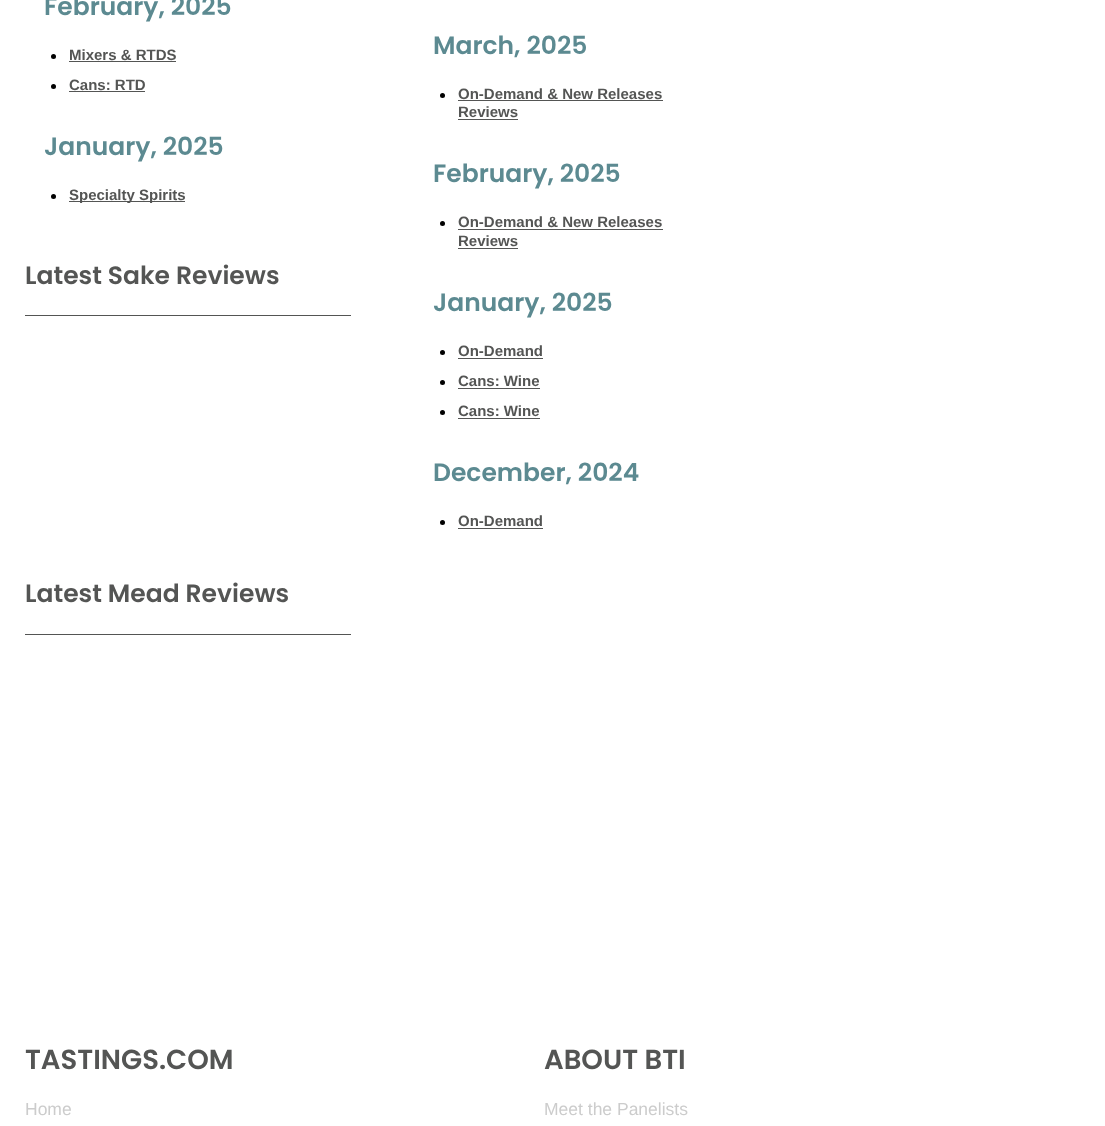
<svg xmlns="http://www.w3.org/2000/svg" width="1105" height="1126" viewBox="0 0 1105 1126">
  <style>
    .t1 { font: 600 25px Poppins; fill: #5c8a91; }
    .t2 { font: bold 15px Liberation Sans; fill: #545554; }
    .t3 { font: 600 25px Poppins; fill: #545554; }
    .t4 { font: 600 27.5px Poppins; fill: #545554; }
    .t5 { font: 17.5px Liberation Sans; fill: #ccc; }
  </style>
  <rect width="100%" height="100%" fill="#fff"/>
  <text x="44" y="15" class="t1">February, 2025</text>
  <circle cx="53.5" cy="56.5" r="2.5" fill="#010101"/>
  <text x="69" y="60" class="t2">Mixers &amp; RTDS</text>
  <rect x="69" y="61" width="107" height="1" fill="#545554"/>
  <circle cx="53.5" cy="86.5" r="2.5" fill="#010101"/>
  <text x="69" y="90" class="t2">Cans: RTD</text>
  <rect x="69" y="91" width="76" height="1" fill="#545554"/>
  <text x="44" y="155" class="t1">January, 2025</text>
  <circle cx="53.5" cy="196.5" r="2.5" fill="#010101"/>
  <rect x="69" y="201" width="116" height="1" fill="#545554"/>
  <text x="69" y="200" class="t2">Specialty Spirits</text>
  <rect x="25" y="315" width="326" height="1" fill="#545554"/>
  <text x="25" y="284" class="t3">Latest Sake Reviews</text>
  <rect x="25" y="634" width="326" height="1" fill="#545554"/>
  <text x="25" y="602" class="t3">Latest Mead Reviews</text>
  <text x="433" y="54" class="t1">March, 2025</text>
  <circle cx="442.5" cy="95.5" r="2.5" fill="#010101"/>
  <text x="458" y="99" class="t2">On-Demand &amp; New Releases</text>
  <rect x="458" y="100" width="205" height="1" fill="#545554"/>
  <text x="458" y="117" class="t2">Reviews</text>
  <rect x="458" y="119" width="60" height="1" fill="#545554"/>
  <text x="433" y="182" class="t1">February, 2025</text>
  <circle cx="442.5" cy="223.5" r="2.5" fill="#010101"/>
  <text x="458" y="227" class="t2">On-Demand &amp; New Releases</text>
  <rect x="458" y="229" width="205" height="1" fill="#545554"/>
  <text x="458" y="246" class="t2">Reviews</text>
  <rect x="458" y="248" width="60" height="1" fill="#545554"/>
  <text x="433" y="311" class="t1">January, 2025</text>
  <circle cx="442.5" cy="352.5" r="2.5" fill="#010101"/>
  <text x="458" y="356" class="t2">On-Demand</text>
  <rect x="458" y="358" width="85" height="1" fill="#545554"/>
  <circle cx="442.5" cy="382.5" r="2.5" fill="#010101"/>
  <text x="458" y="386" class="t2">Cans: Wine</text>
  <rect x="458" y="388" width="82" height="1" fill="#545554"/>
  <circle cx="442.5" cy="412.5" r="2.5" fill="#010101"/>
  <text x="458" y="416" class="t2">Cans: Wine</text>
  <rect x="458" y="418" width="82" height="1" fill="#545554"/>
  <text x="433" y="481" class="t1">December, 2024</text>
  <circle cx="442.5" cy="522.5" r="2.5" fill="#010101"/>
  <text x="458" y="526" class="t2">On-Demand</text>
  <rect x="458" y="528" width="85" height="1" fill="#545554"/>
  <text x="25" y="1069" class="t4">TASTINGS.COM</text>
  <text x="25" y="1115" class="t5">Home</text>
  <text x="544" y="1069" class="t4">ABOUT BTI</text>
  <text x="544" y="1115" class="t5">Meet the Panelists</text>
</svg>
